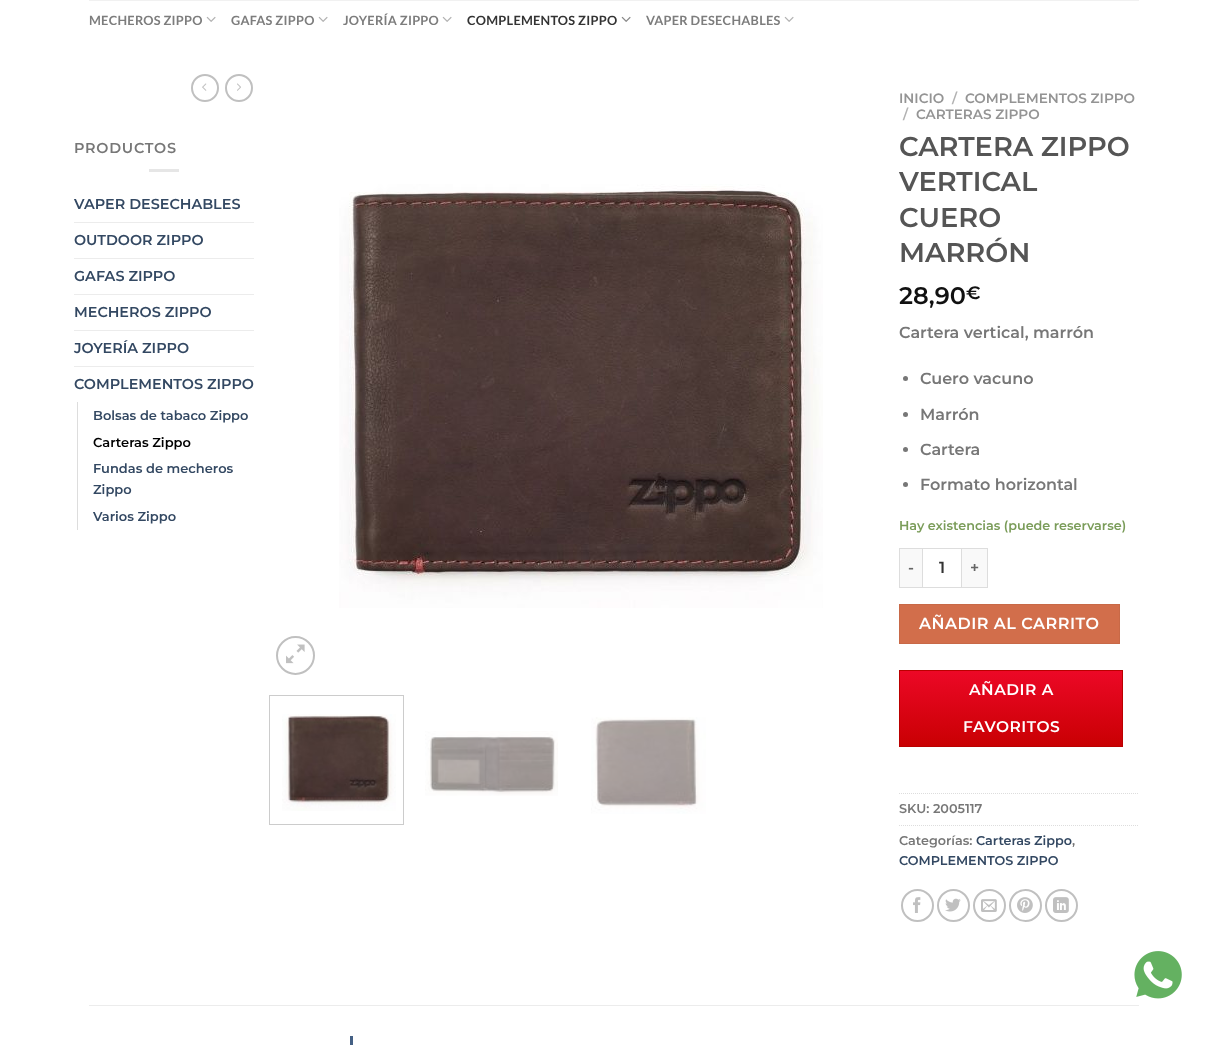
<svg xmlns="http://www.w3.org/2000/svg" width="1228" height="1045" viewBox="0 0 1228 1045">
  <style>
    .t1 { font: bold 12.75px Lato; letter-spacing: 0.25px; fill: #7d7d7d; }
    .t2 { font: bold 12.75px Lato; letter-spacing: 0.25px; fill: #333; }
    .t3 { font: 600 14.4px Montserrat; letter-spacing: 0.75px; fill: #777; }
    .t4 { font: 600 14.4px Montserrat; fill: #334862; }
    .t5 { font: 600 13px Montserrat; fill: #334862; }
    .t6 { font: 600 13px Montserrat; fill: #000; }
    .t7 { font: 600 13.6px Montserrat; fill: #949494; }
    .t8 { font: 600 13.6px Montserrat; fill: #b2b2b2; }
    .t9 { font: 600 27.25px Montserrat; fill: #555; }
    .t10 { font: 600 24px Montserrat; fill: #111; }
    .t11 { font: 600 18px Montserrat; fill: #111; }
    .t12 { font: 600 16px Montserrat; fill: #777; }
    .t13 { font: 600 12.75px Montserrat; fill: #7a9c59; }
    .t14 { font: 600 15.5px Montserrat; letter-spacing: 0.5px; fill: #666; }
    .t15 { font: 600 16px Montserrat; fill: #333; }
    .t16 { font: 600 16px Montserrat; letter-spacing: 0.5px; fill: #fff; }
    .t17 { font: 600 15.5px Montserrat; letter-spacing: 0.5px; fill: #fff; }
    .t18 { font: 600 12.75px Montserrat; fill: #777; }
    .t19 { font: 600 12.75px Montserrat; fill: #334862; }
  </style>
  <defs>
    <linearGradient id="g1" gradientUnits="userSpaceOnUse" x1="1011" y1="671" x2="1011" y2="746"><stop offset="0" stop-color="#ec0826"/><stop offset="1" stop-color="#c90003"/></linearGradient>
  </defs>
  <rect width="100%" height="100%" fill="#fff"/>
  <rect x="89" y="0" width="1050" height="1" fill="#f1f1f1"/>
  <text x="89" y="25" class="t1">MECHEROS ZIPPO</text>
  <image x="206" y="16" width="10" height="6" href="images/1.png"/>
  <text x="231" y="25" class="t1">GAFAS ZIPPO</text>
  <image x="318" y="16" width="10" height="6" href="images/1.png"/>
  <text x="343" y="25" class="t1">JOYERÍA ZIPPO</text>
  <image x="442" y="16" width="10" height="6" href="images/1.png"/>
  <text x="467" y="25" class="t2">COMPLEMENTOS ZIPPO</text>
  <image x="621" y="16" width="10" height="6" href="images/2.png"/>
  <text x="646" y="25" class="t1">VAPER DESECHABLES</text>
  <image x="784" y="16" width="10" height="6" href="images/1.png"/>
  <circle cx="205" cy="88" r="13" fill="none" stroke="#c0c0c0" stroke-width="2"/>
  <image x="202" y="83" width="5" height="8" href="images/3.png"/>
  <circle cx="239" cy="88" r="13" fill="none" stroke="#c0c0c0" stroke-width="2"/>
  <image x="237" y="83" width="4" height="8" href="images/4.png"/>
  <text x="74" y="153" class="t3">PRODUCTOS</text>
  <rect x="149" y="169" width="30" height="3" fill="#e6e6e6"/>
  <text x="74" y="209" class="t4">VAPER DESECHABLES</text>
  <rect x="74" y="222" width="180" height="1" fill="#ececec"/>
  <text x="74" y="245" class="t4">OUTDOOR ZIPPO</text>
  <rect x="74" y="258" width="180" height="1" fill="#ececec"/>
  <text x="74" y="281" class="t4">GAFAS ZIPPO</text>
  <rect x="74" y="294" width="180" height="1" fill="#ececec"/>
  <text x="74" y="317" class="t4">MECHEROS ZIPPO</text>
  <rect x="74" y="330" width="180" height="1" fill="#ececec"/>
  <text x="74" y="353" class="t4">JOYERÍA ZIPPO</text>
  <rect x="74" y="366" width="180" height="1" fill="#ececec"/>
  <text x="74" y="389" class="t4">COMPLEMENTOS ZIPPO</text>
  <rect x="77" y="402" width="1" height="128" fill="#ddd"/>
  <text x="93" y="420" class="t5">Bolsas de tabaco Zippo</text>
  <text x="93" y="447" class="t6">Carteras Zippo</text>
  <text x="93" y="473" class="t5">Fundas de mecheros</text>
  <text x="93" y="494" class="t5">Zippo</text>
  <text x="93" y="521" class="t5">Varios Zippo</text>
  <image x="339" y="184" width="484" height="424" href="images/5.png"/>
  <circle cx="295.5" cy="655.5" r="18.5" fill="none" stroke="#c0c0c0" stroke-width="2"/>
  <image x="286" y="644" width="19" height="20" href="images/6.png"/>
  <rect x="269.5" y="695.5" width="134" height="129" fill="none" stroke="#ccc"/>
  <image x="282" y="714" width="114" height="97" href="images/7.png"/>
  <image x="425" y="731" width="133" height="65" href="images/8.png"/>
  <image x="591" y="717" width="115" height="97" href="images/9.png"/>
  <text x="899" y="103" class="t7">INICIO</text>
  <text x="952" y="103" class="t8">/</text>
  <text x="965" y="103" class="t7">COMPLEMENTOS ZIPPO</text>
  <text x="903" y="119" class="t8">/</text>
  <text x="916" y="119" class="t7">CARTERAS ZIPPO</text>
  <text x="899" y="156" class="t9">CARTERA ZIPPO</text>
  <text x="899" y="191" class="t9">VERTICAL</text>
  <text x="899" y="227" class="t9">CUERO</text>
  <text x="899" y="262" class="t9">MARRÓN</text>
  <text x="899" y="304" class="t10">28,90</text>
  <text x="966" y="299" class="t11">€</text>
  <text x="899" y="338" class="t12">Cartera vertical, marrón</text>
  <circle cx="905.5" cy="378.5" r="2.5" fill="#777"/>
  <text x="920" y="384" class="t12">Cuero vacuno</text>
  <circle cx="905.5" cy="414.5" r="2.5" fill="#777"/>
  <text x="920" y="420" class="t12">Marrón</text>
  <circle cx="905.5" cy="449.5" r="2.5" fill="#777"/>
  <text x="920" y="455" class="t12">Cartera</text>
  <circle cx="905.5" cy="484.5" r="2.5" fill="#777"/>
  <text x="920" y="490" class="t12">Formato horizontal</text>
  <text x="899" y="530" class="t13">Hay existencias (puede reservarse)</text>
  <rect x="900" y="549" width="22" height="38" fill="#f9f9f9"/>
  <rect x="899" y="548" width="23" height="1" fill="#ddd"/>
  <rect x="899" y="587" width="23" height="1" fill="#ddd"/>
  <rect x="899" y="548" width="1" height="40" fill="#ddd"/>
  <text x="908" y="573" class="t14">-</text>
  <rect x="922.5" y="548.5" width="39" height="39" fill="none" stroke="#ddd"/>
  <text x="939" y="573" class="t15">1</text>
  <rect x="962" y="549" width="25" height="38" fill="#f9f9f9"/>
  <rect x="962" y="548" width="26" height="1" fill="#ddd"/>
  <rect x="987" y="548" width="1" height="40" fill="#ddd"/>
  <rect x="962" y="587" width="26" height="1" fill="#ddd"/>
  <text x="970" y="573" class="t14">+</text>
  <rect x="899.5" y="604.5" width="220" height="39" fill="#d26e4b" stroke="#c86947"/>
  <text x="919" y="629" class="t16">AÑADIR AL CARRITO</text>
  <rect x="900" y="671" width="222" height="75" fill="url(#g1)"/>
  <rect x="899.5" y="670.5" width="223" height="76" fill="none" stroke="#ba0000"/>
  <text x="969" y="695" class="t17">AÑADIR A</text>
  <text x="963" y="732" class="t17">FAVORITOS</text>
  <path d="M899 793.5H1139" fill="none" stroke="#ddd" stroke-dasharray="1 1"/>
  <text x="899" y="813" class="t18">SKU: 2005117</text>
  <path d="M899 825.5H1139" fill="none" stroke="#ddd" stroke-dasharray="1 1"/>
  <text x="899" y="845" class="t18">Categorías:</text>
  <text x="976" y="845" class="t19">Carteras Zippo</text>
  <text x="1072" y="845" class="t18">,</text>
  <text x="899" y="865" class="t19">COMPLEMENTOS ZIPPO</text>
  <circle cx="917.5" cy="905.5" r="15.5" fill="none" stroke="#c0c0c0" stroke-width="2"/>
  <image x="913" y="897" width="8" height="16" href="images/10.png"/>
  <circle cx="953.5" cy="905.5" r="15.5" fill="none" stroke="#c0c0c0" stroke-width="2"/>
  <image x="945" y="898" width="16" height="14" href="images/11.png"/>
  <circle cx="989.5" cy="905.5" r="15.5" fill="none" stroke="#c0c0c0" stroke-width="2"/>
  <image x="981" y="899" width="16" height="13" href="images/12.png"/>
  <circle cx="1025.5" cy="905.5" r="15.5" fill="none" stroke="#c0c0c0" stroke-width="2"/>
  <image x="1017" y="897" width="16" height="16" href="images/13.png"/>
  <circle cx="1061.5" cy="905.5" r="15.5" fill="none" stroke="#c0c0c0" stroke-width="2"/>
  <image x="1053" y="897" width="16" height="16" href="images/14.png"/>
  <rect x="89" y="1005" width="1050" height="1" fill="#ececec"/>
  <rect x="350" y="1036" width="3" height="9" fill="#446084"/>
  <image x="1134" y="951" width="48" height="48" href="images/15.png"/>
</svg>
